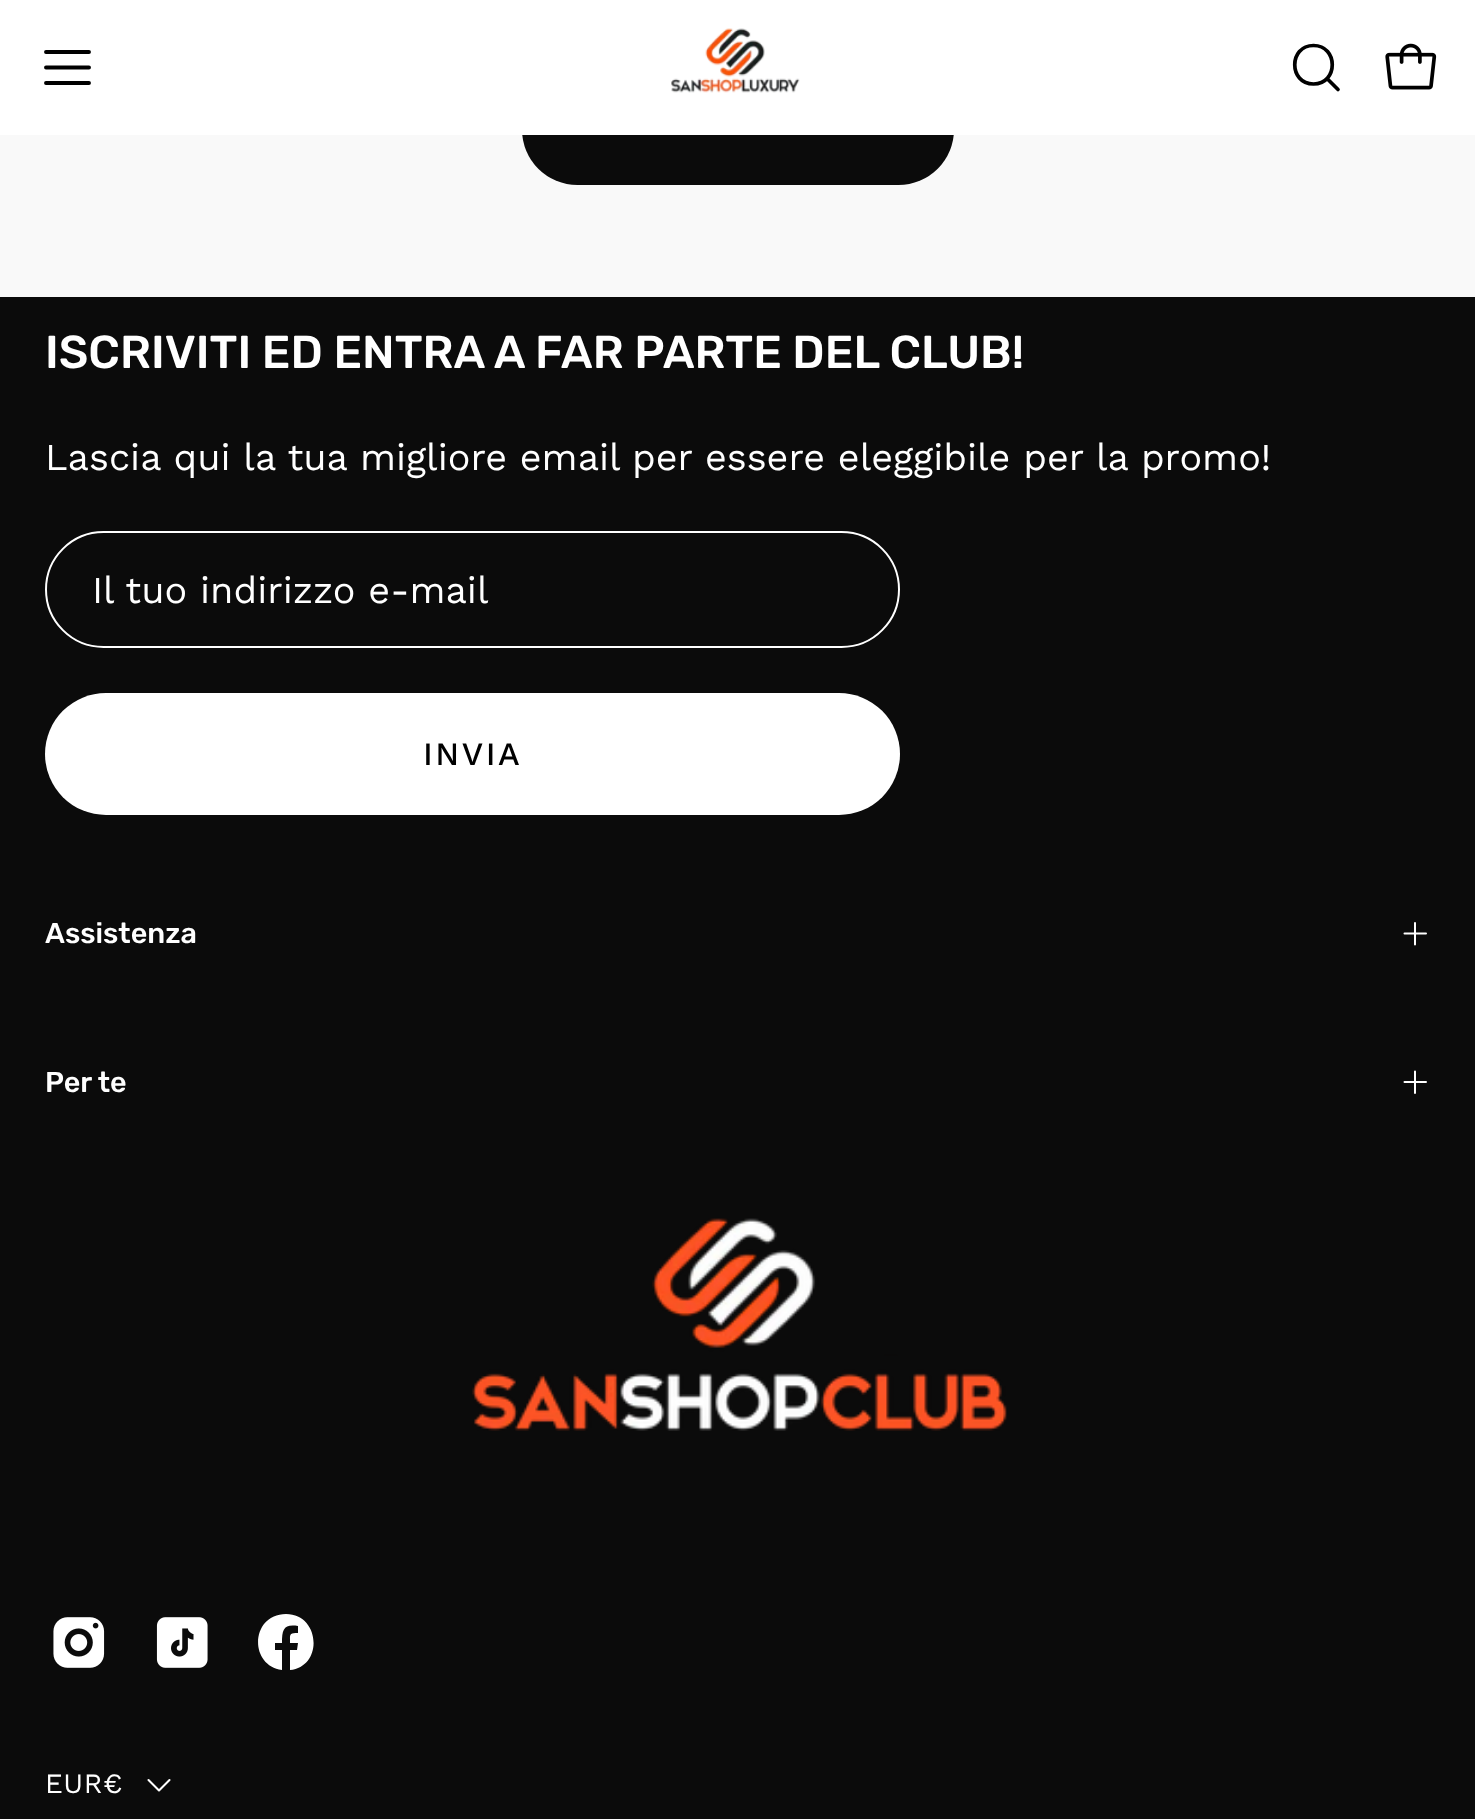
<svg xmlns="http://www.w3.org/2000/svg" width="1475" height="1819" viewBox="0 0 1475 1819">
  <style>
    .t1 { font: 500 46.1px Rubik; fill: #fff; }
    .t2 { font: 37.8px Work Sans; fill: #fff; }
    .t3 { font: 500 32.5px Work Sans; letter-spacing: 2.5px; fill: #000; }
    .t4 { font: 500 28.75px Rubik; fill: #fff; }
    .t5 { font: 28px Work Sans; letter-spacing: 0.5px; fill: #fff; }
  </style>
  <rect width="100%" height="100%" fill="#f9f9f9"/>
  <rect x="522" y="74" width="432" height="111" rx="55.5" fill="#0b0b0b"/>
  <rect x="0" y="0" width="1475" height="135" fill="#fff"/>
  <path d="M46 67.5H89M46 52H89M46 83H89" fill="none" stroke="#000" stroke-width="3.9" stroke-linecap="round" stroke-linejoin="round"/>
  <image x="671" y="28" width="129" height="65" href="images/1.png"/>
  <path d="M1313.5 84C1338.5 84 1338.5 45.5 1313.5 45.5C1288.5 45.5 1288.5 84 1313.5 84ZM1327 78.5L1338 89.5" fill="none" stroke="#000" stroke-width="3.7" stroke-linecap="round" stroke-linejoin="round"/>
  <image x="1385" y="43" width="52" height="47" href="images/2.png"/>
  <rect x="0" y="297" width="1475" height="1522" fill="#0b0b0b"/>
  <text x="45" y="368" class="t1">ISCRIVITI ED ENTRA A FAR PARTE DEL CLUB!</text>
  <text x="45" y="470" word-spacing="-0.1" class="t2">Lascia qui la tua migliore email per essere eleggibile per la promo!</text>
  <rect x="46" y="532" width="853" height="115" rx="57.5" fill="none" stroke="#fff" stroke-width="2"/>
  <text x="92" y="603" class="t2">Il tuo indirizzo e-mail</text>
  <rect x="45" y="693" width="855" height="122" rx="61" fill="#fff"/>
  <text x="423" y="765" class="t3">INVIA</text>
  <text x="45" y="943" class="t4">Assistenza</text>
  <path d="M1404.5 933.5H1426M1415 923V944.5" fill="none" stroke="#fff" stroke-width="2" stroke-linecap="round" stroke-linejoin="round"/>
  <text x="45" y="1092" class="t4">Per te</text>
  <path d="M1404.5 1082H1426M1415 1071.5V1093" fill="none" stroke="#fff" stroke-width="2" stroke-linecap="round" stroke-linejoin="round"/>
  <image x="472" y="1218" width="535" height="213" href="images/3.png"/>
  <image x="53" y="1617" width="52" height="51" href="images/4.png"/>
  <image x="156" y="1617" width="52" height="51" href="images/5.png"/>
  <path d="M286 1614C251 1614 248 1665 282 1670V1650H275V1643H282C282 1629 284 1624 298 1626V1633C289 1633 290 1634 290 1643H298L297 1650H290V1670C324 1666 320 1614 286 1614Z" fill="#fff"/>
  <text x="45" y="1793" class="t5">EUR€</text>
  <path d="M169.5 1780L159 1790.5L148.5 1780" fill="none" stroke="#fff" stroke-width="2.1" stroke-linecap="round" stroke-linejoin="round"/>
</svg>
